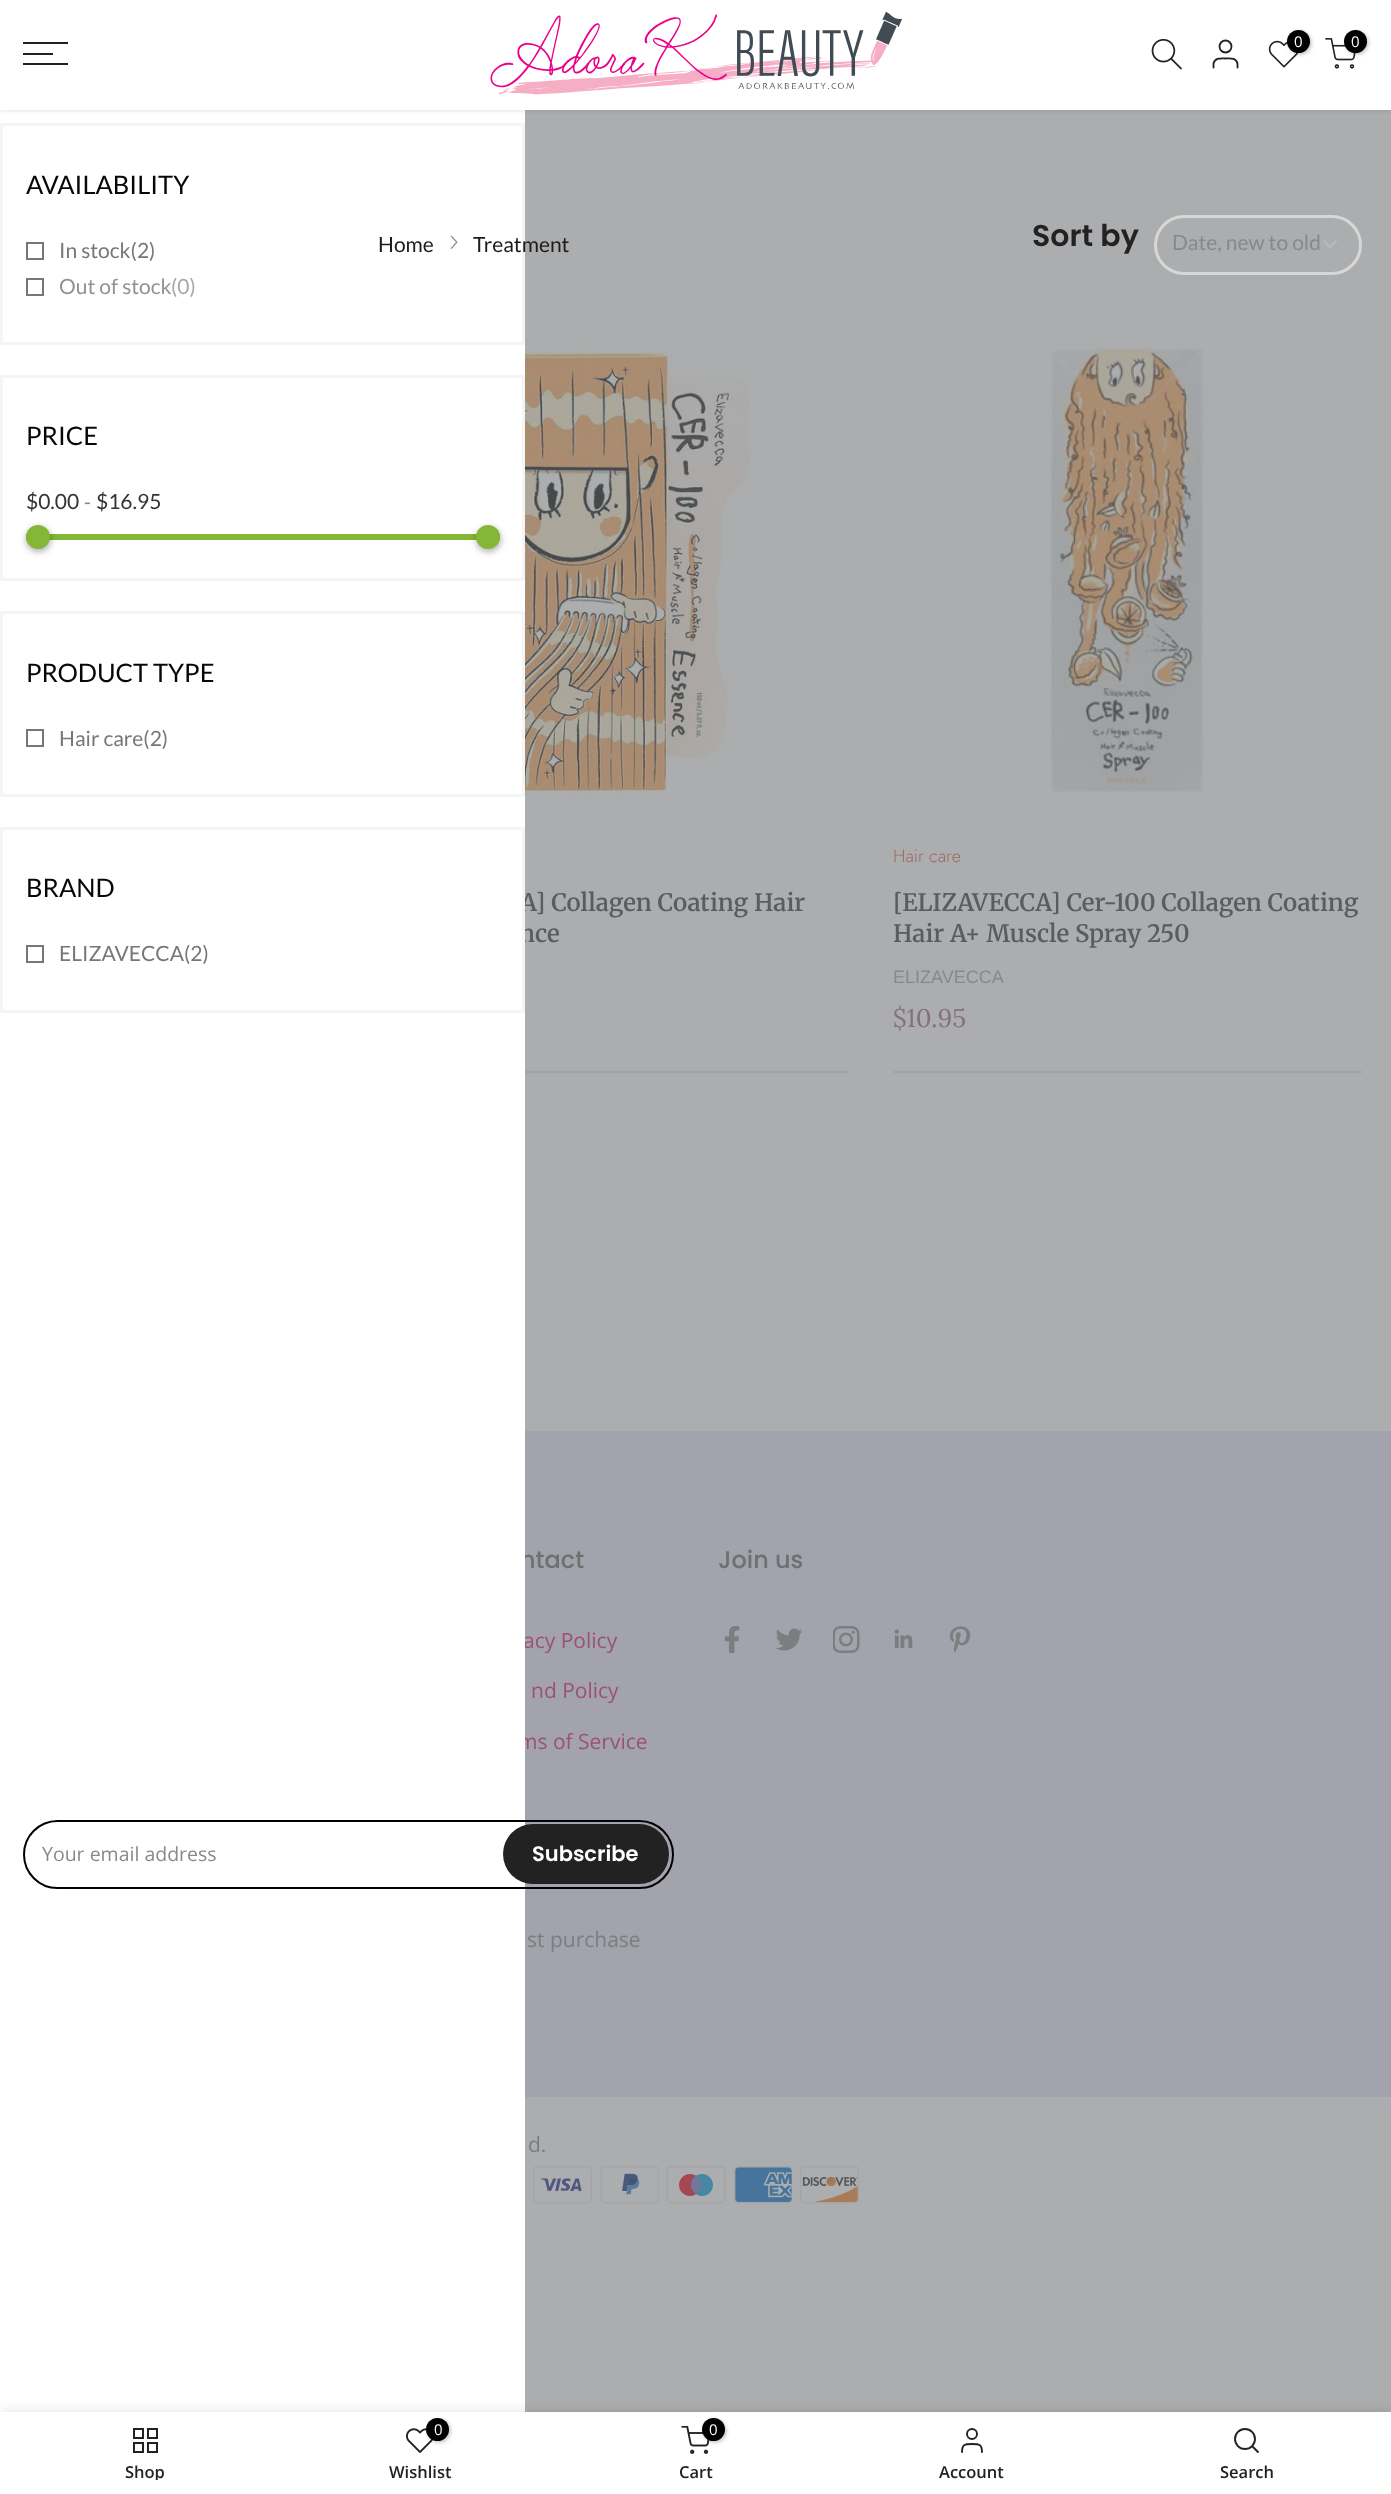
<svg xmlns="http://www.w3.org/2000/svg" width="1391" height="2494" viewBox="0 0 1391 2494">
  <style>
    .t1 { font: 600 24px Merriweather; fill: #5a5c5d; }
    .t2 { font: 500 24px Poppins; fill: #6e7071; }
    .t3 { font: 21px Open Sans; fill: #9c526f; }
    .t4 { font: 15px Open Sans; fill: #fff; }
    .t5 { font: 25.5px Lato; fill: #080707; }
    .t6 { font: 21px Lato; fill: #777; }
    .t7 { font: 21px Lato; fill: #929292; }
    .t8 { font: 21px Lato; fill: #a8a8a8; }
    .t9 { font: 21px Lato; fill: #333; }
    .t10 { font: 21px Open Sans; fill: #88898b; }
    .t11 { font: 21px Lato; fill: #1f1b1b; }
    .t12 { font: 600 30px Poppins; fill: #222; }
    .t13 { font: 21px Lato; fill: #88898b; }
    .t14 { font: 300 18px Jost; fill: #9f6a63; }
    .t15 { font: 18px Liberation Sans; fill: #88898b; }
    .t16 { font: 25.5px Lora; fill: #82707e; }
    .t17 { font: 19.5px Open Sans; fill: #88898b; }
    .t18 { font: 600 21px Poppins; fill: #fff; }
    .t19 { font: 21px Open Sans; fill: #7c7d7f; }
    .t20 { font: 600 16.5px Open Sans; fill: #222; }
  </style>
  <defs>
    <clipPath id="clip1"><rect x="23" y="2463" width="246" height="17"/></clipPath>
  </defs>
  <rect width="100%" height="100%" fill="#acadaf"/>
  <text x="520" y="911" class="t1">A] Collagen Coating Hair</text>
  <text x="519" y="942" class="t1">nce</text>
  <rect x="525" y="1431" width="866" height="666" fill="#a2a3ad"/>
  <text x="520" y="1568" class="t2">ntact</text>
  <text x="523" y="1648" class="t3">acy Policy</text>
  <text x="518" y="1749" class="t3">ms of Service</text>
  <rect x="0" y="110" width="525" height="2302" fill="#fff"/>
  <rect x="0" y="2" width="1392" height="109" fill="#0000001a" filter="blur(2px)"/>
  <rect x="0" y="0" width="1391" height="110" fill="#fff"/>
  <rect x="23" y="42" width="45" height="2" fill="#222"/>
  <rect x="23" y="53" width="30" height="2" fill="#222"/>
  <rect x="23" y="63" width="45" height="2" fill="#222"/>
  <image x="490" y="11" width="413" height="84" href="images/1.png"/>
  <image x="1151" y="38" width="31" height="32" href="images/2.png"/>
  <circle cx="1225.5" cy="46.5" r="6" fill="none" stroke="#222" stroke-width="1.8"/>
  <path d="M1237.5 67.5V63.5C1236 57.5 1230 58.5 1225.5 58.5C1221 58.5 1215 57.5 1213.5 63.5V67.5" fill="none" stroke="#222" stroke-width="1.8" stroke-linecap="round" stroke-linejoin="round"/>
  <image x="1268" y="40" width="31" height="28" href="images/3.png"/>
  <rect x="1289" y="32" width="22" height="22" rx="11" fill="#0000004d" filter="blur(2px)"/>
  <circle cx="1298.5" cy="41.5" r="11.5" fill="#000"/>
  <text x="1294" y="47" class="t4">0</text>
  <image x="1325" y="38" width="31" height="31" href="images/4.png"/>
  <rect x="1346" y="32" width="22" height="22" rx="11" fill="#0000004d" filter="blur(2px)"/>
  <circle cx="1355.5" cy="41.5" r="11.5" fill="#000"/>
  <text x="1351" y="47" class="t4">0</text>
  <rect x="1.5" y="124.5" width="522" height="219" fill="none" stroke="#f5f5f5" stroke-width="3"/>
  <text x="26" y="194" class="t5">AVAILABILITY</text>
  <rect x="27" y="243" width="16" height="16" fill="none" stroke="#777" stroke-width="2"/>
  <text x="59" y="258" class="t6">In stock(2)</text>
  <rect x="27" y="279" width="16" height="16" fill="none" stroke="#777" stroke-width="2"/>
  <text x="59" y="294" class="t7">Out of stock</text>
  <text x="171" y="294" class="t8">(0)</text>
  <rect x="1.5" y="376.5" width="522" height="203" fill="none" stroke="#f5f5f5" stroke-width="3"/>
  <text x="26" y="445" class="t5">PRICE</text>
  <text x="26" y="509" class="t9">$0.00</text>
  <text x="84" y="509" class="t10">-</text>
  <text x="96" y="509" class="t9">$16.95</text>
  <rect x="26" y="534" width="474" height="6" fill="#83b735"/>
  <rect x="26" y="527" width="25" height="25" rx="12.5" fill="#0000004d" filter="blur(3px)"/>
  <circle cx="38" cy="537" r="12" fill="#83b735"/>
  <rect x="476" y="527" width="25" height="25" rx="12.5" fill="#0000004d" filter="blur(3px)"/>
  <circle cx="488" cy="537" r="12" fill="#83b735"/>
  <rect x="1.5" y="612.5" width="522" height="183" fill="none" stroke="#f5f5f5" stroke-width="3"/>
  <text x="26" y="682" class="t5">PRODUCT TYPE</text>
  <rect x="27" y="730" width="16" height="16" fill="none" stroke="#777" stroke-width="2"/>
  <text x="59" y="746" class="t6">Hair care(2)</text>
  <rect x="1.5" y="828.5" width="522" height="183" fill="none" stroke="#f5f5f5" stroke-width="3"/>
  <text x="26" y="897" class="t5">BRAND</text>
  <rect x="27" y="946" width="16" height="16" fill="none" stroke="#777" stroke-width="2"/>
  <text x="59" y="961" class="t6">ELIZAVECCA(2)</text>
  <text x="378" y="252" class="t11">Home</text>
  <image x="450" y="235" width="8" height="14" href="images/5.png"/>
  <text x="473" y="252" class="t11">Treatment</text>
  <text x="1032" y="246" class="t12">Sort by</text>
  <path d="M1323.5 240.5L1330 247L1336.5 240.5" fill="none" stroke="#bbb" stroke-width="2.2"/>
  <rect x="1155.5" y="216.5" width="205" height="57" rx="28.5" fill="none" stroke="#d7d7d7" stroke-width="3"/>
  <text x="1172" y="250" class="t13">Date, new to old</text>
  <rect x="525" y="1071" width="323" height="2" fill="#a1a3a4"/>
  <image x="525" y="347" width="226" height="452" href="images/6.png"/>
  <rect x="893" y="1071" width="469" height="2" fill="#a1a3a4"/>
  <image x="1049" y="345" width="156" height="448" href="images/7.png"/>
  <text x="893" y="862" class="t14">Hair care</text>
  <text x="893" y="911" class="t1">[ELIZAVECCA] Cer-100 Collagen Coating</text>
  <text x="893" y="942" class="t1">Hair A+ Muscle Spray 250</text>
  <text x="893" y="983" class="t15">ELIZAVECCA</text>
  <text x="893" y="1027" class="t16">$10.95</text>
  <text x="531" y="1698" class="t3">nd Policy</text>
  <text x="718" y="1568" class="t2">Join us</text>
  <image x="724" y="1626" width="16" height="27" href="images/8.png"/>
  <image x="776" y="1628" width="27" height="23" href="images/9.png"/>
  <image x="833" y="1626" width="27" height="27" href="images/10.png"/>
  <image x="894" y="1629" width="19" height="19" href="images/11.png"/>
  <image x="949" y="1626" width="22" height="27" href="images/12.png"/>
  <rect x="24" y="1821" width="649" height="67" rx="33.5" fill="none" stroke="#000" stroke-width="2"/>
  <text x="42" y="1861" class="t17">Your email address</text>
  <rect x="503" y="1824" width="166" height="60" rx="30" fill="#222"/>
  <text x="532" y="1861" class="t18">Subscribe</text>
  <text x="527" y="1947" class="t19">st purchase</text>
  <text x="528" y="2152" class="t19">d.</text>
  <image x="533" y="2166" width="59" height="38" href="images/13.png"/>
  <image x="600" y="2166" width="59" height="38" href="images/14.png"/>
  <image x="666" y="2166" width="60" height="38" href="images/15.png"/>
  <image x="734" y="2166" width="58" height="38" href="images/16.png"/>
  <image x="800" y="2166" width="59" height="38" href="images/17.png"/>
  <rect x="0" y="2412" width="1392" height="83" fill="#0000001f" filter="blur(7px)"/>
  <rect x="0" y="2412" width="1391" height="82" fill="#fff"/>
  <rect x="134" y="2429" width="9" height="9" fill="none" stroke="#222" stroke-width="2"/>
  <rect x="148" y="2429" width="9" height="9" fill="none" stroke="#222" stroke-width="2"/>
  <rect x="134" y="2443" width="9" height="9" fill="none" stroke="#222" stroke-width="2"/>
  <rect x="148" y="2443" width="9" height="9" fill="none" stroke="#222" stroke-width="2"/>
  <g clip-path="url(#clip1)">
    <text x="125" y="2478" class="t20">Shop</text>
  </g>
  <image x="406" y="2428" width="27" height="25" href="images/18.png"/>
  <rect x="428" y="2420" width="22" height="22" rx="11" fill="#0000004d" filter="blur(2px)"/>
  <circle cx="437.5" cy="2429.5" r="11.5" fill="#000"/>
  <text x="434" y="2435" class="t4">0</text>
  <text x="389" y="2478" class="t20">Wishlist</text>
  <image x="681" y="2426" width="29" height="28" href="images/19.png"/>
  <rect x="704" y="2420" width="22" height="22" rx="11" fill="#0000004d" filter="blur(2px)"/>
  <circle cx="713.5" cy="2429.5" r="11.5" fill="#000"/>
  <text x="709" y="2435" class="t4">0</text>
  <text x="679" y="2478" class="t20">Cart</text>
  <circle cx="972" cy="2434" r="5" fill="none" stroke="#222" stroke-width="1.9"/>
  <path d="M982 2452C982 2444 979 2444 972 2444C965 2444 962 2444 962 2452" fill="none" stroke="#222" stroke-width="1.9" stroke-linecap="round" stroke-linejoin="round"/>
  <text x="939" y="2478" class="t20">Account</text>
  <circle cx="1245" cy="2439" r="10" fill="none" stroke="#222" stroke-width="1.9"/>
  <path d="M1258 2452L1252.5 2446.5" fill="none" stroke="#222" stroke-width="1.9" stroke-linecap="round" stroke-linejoin="round"/>
  <text x="1220" y="2478" class="t20">Search</text>
</svg>
